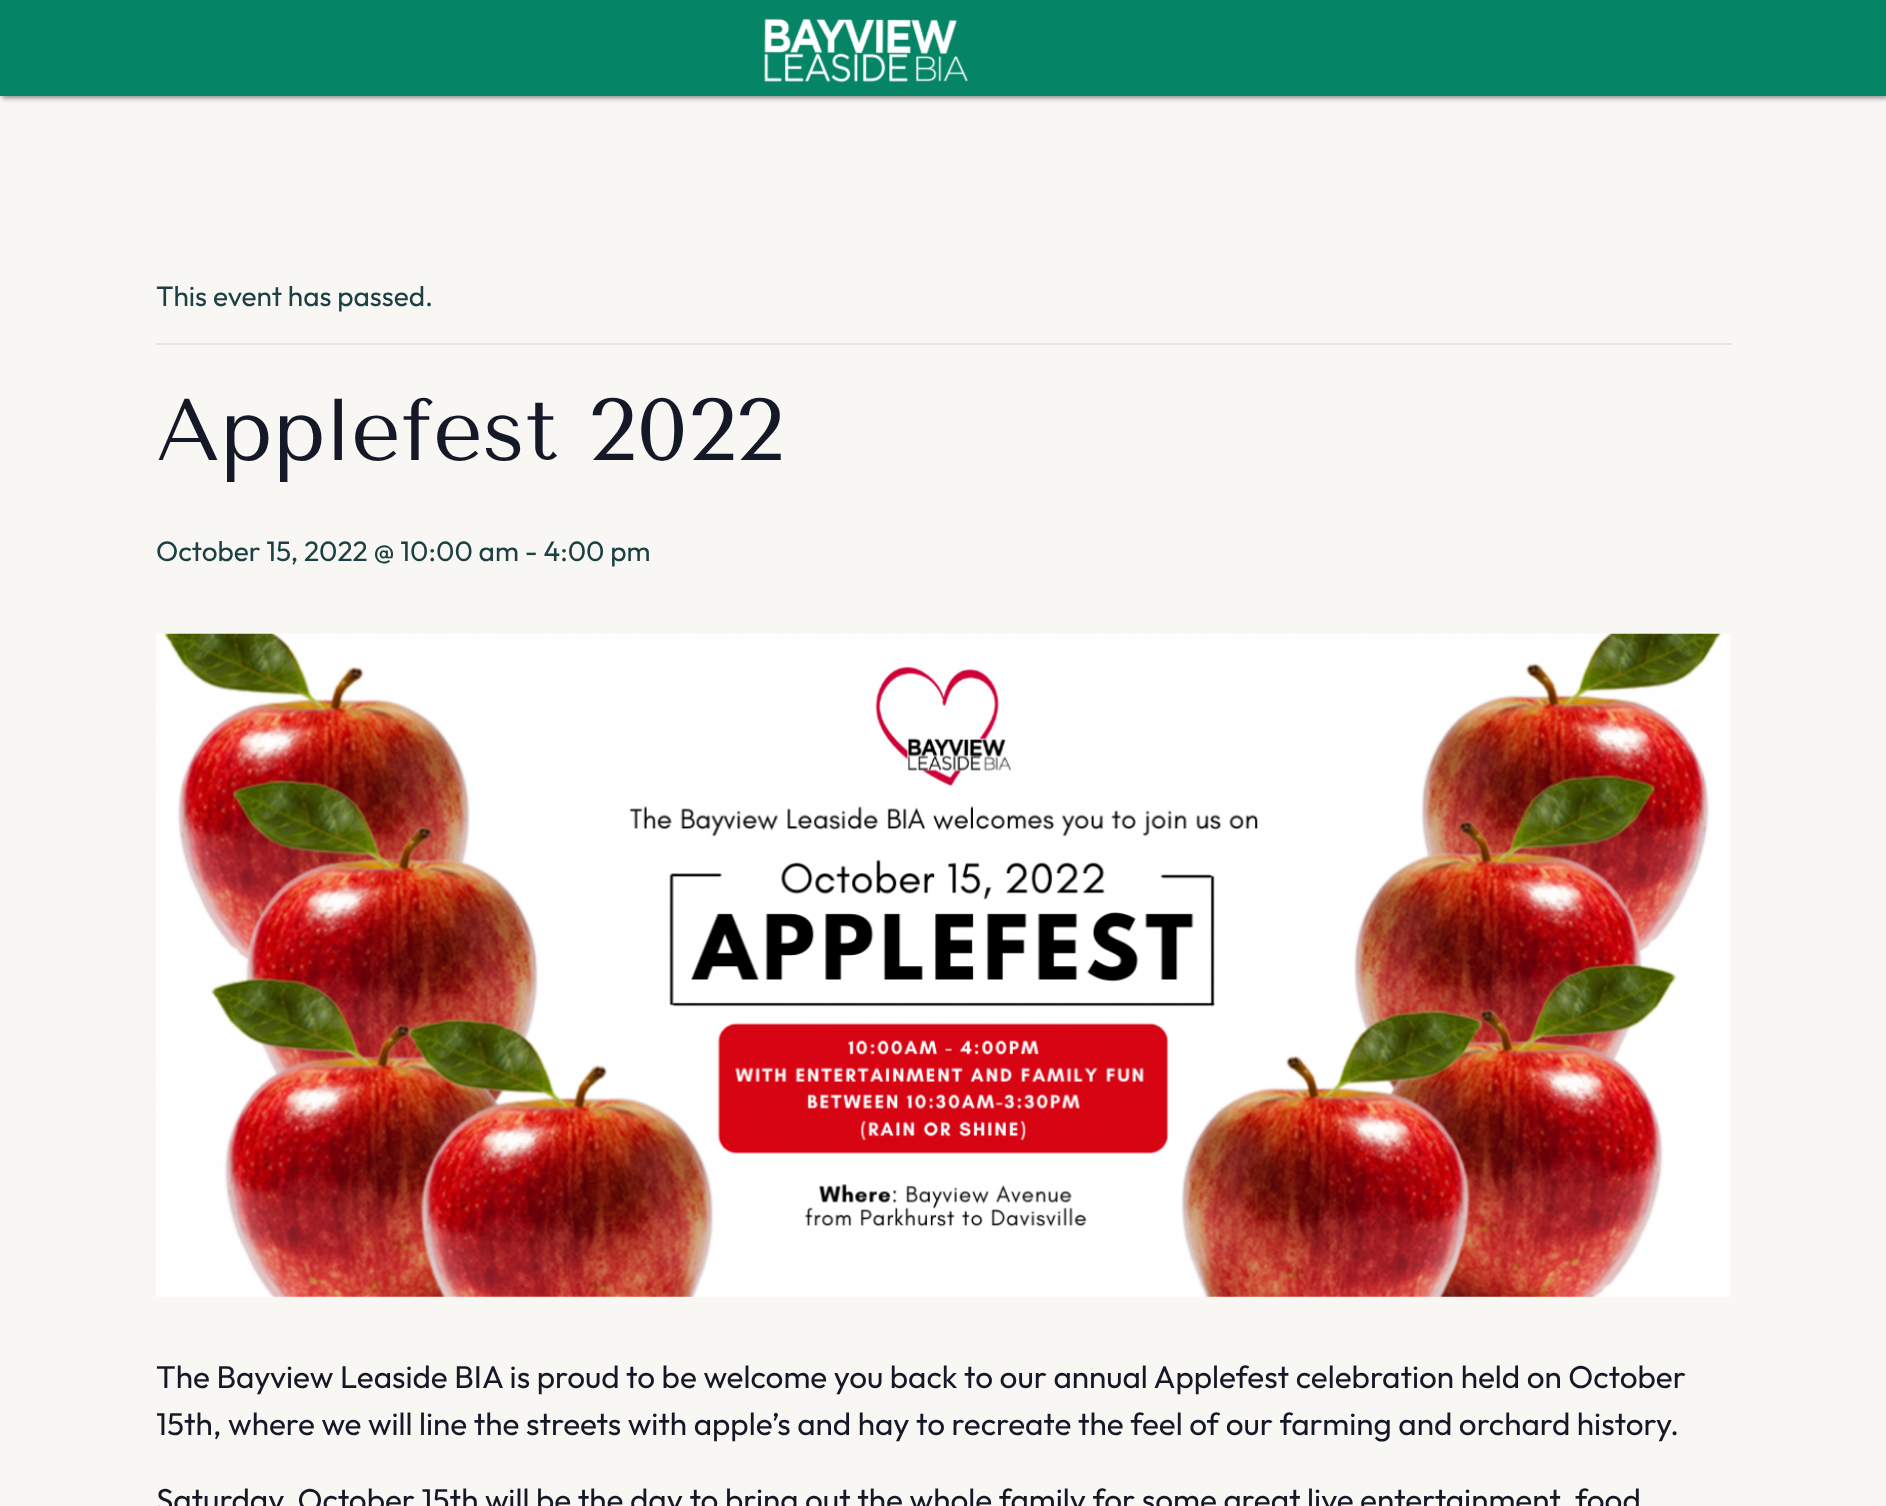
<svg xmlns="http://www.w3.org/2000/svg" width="1886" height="1506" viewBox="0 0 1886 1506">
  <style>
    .t1 { font: 28px Outfit; fill: #1c4044; }
    .t2 { font: 87.5px Tenor Sans; fill: #141827; }
    .t3 { font: 31.5px Outfit; fill: #141827; }
  </style>
  <rect width="100%" height="100%" fill="#f9f7f3"/>
  <rect x="2" y="2" width="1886" height="96" fill="#37363691" filter="blur(2.5px)"/>
  <rect x="0" y="0" width="1886" height="96" fill="#058466"/>
  <image x="764" y="18" width="205" height="65" href="images/1.png"/>
  <rect x="156" y="343" width="1575" height="2" fill="#e4e4e4"/>
  <text x="156" y="306" class="t1">This event has passed.</text>
  <text x="156" y="460" class="t2">Applefest 2022</text>
  <text x="156" y="561" class="t1">October 15, 2022 @ 10:00 am - 4:00 pm</text>
  <image x="156" y="633" width="1575" height="664" href="images/2.png"/>
  <text x="156" y="1388" class="t3">The Bayview Leaside BIA is proud to be welcome you back to our annual Applefest celebration held on October</text>
  <text x="156" y="1435" class="t3">15th, where we will line the streets with apple’s and hay to recreate the feel of our farming and orchard history.</text>
  <text x="156" y="1511" class="t3">Saturday, October 15th will be the day to bring out the whole family for some great live entertainment, food</text>
</svg>
